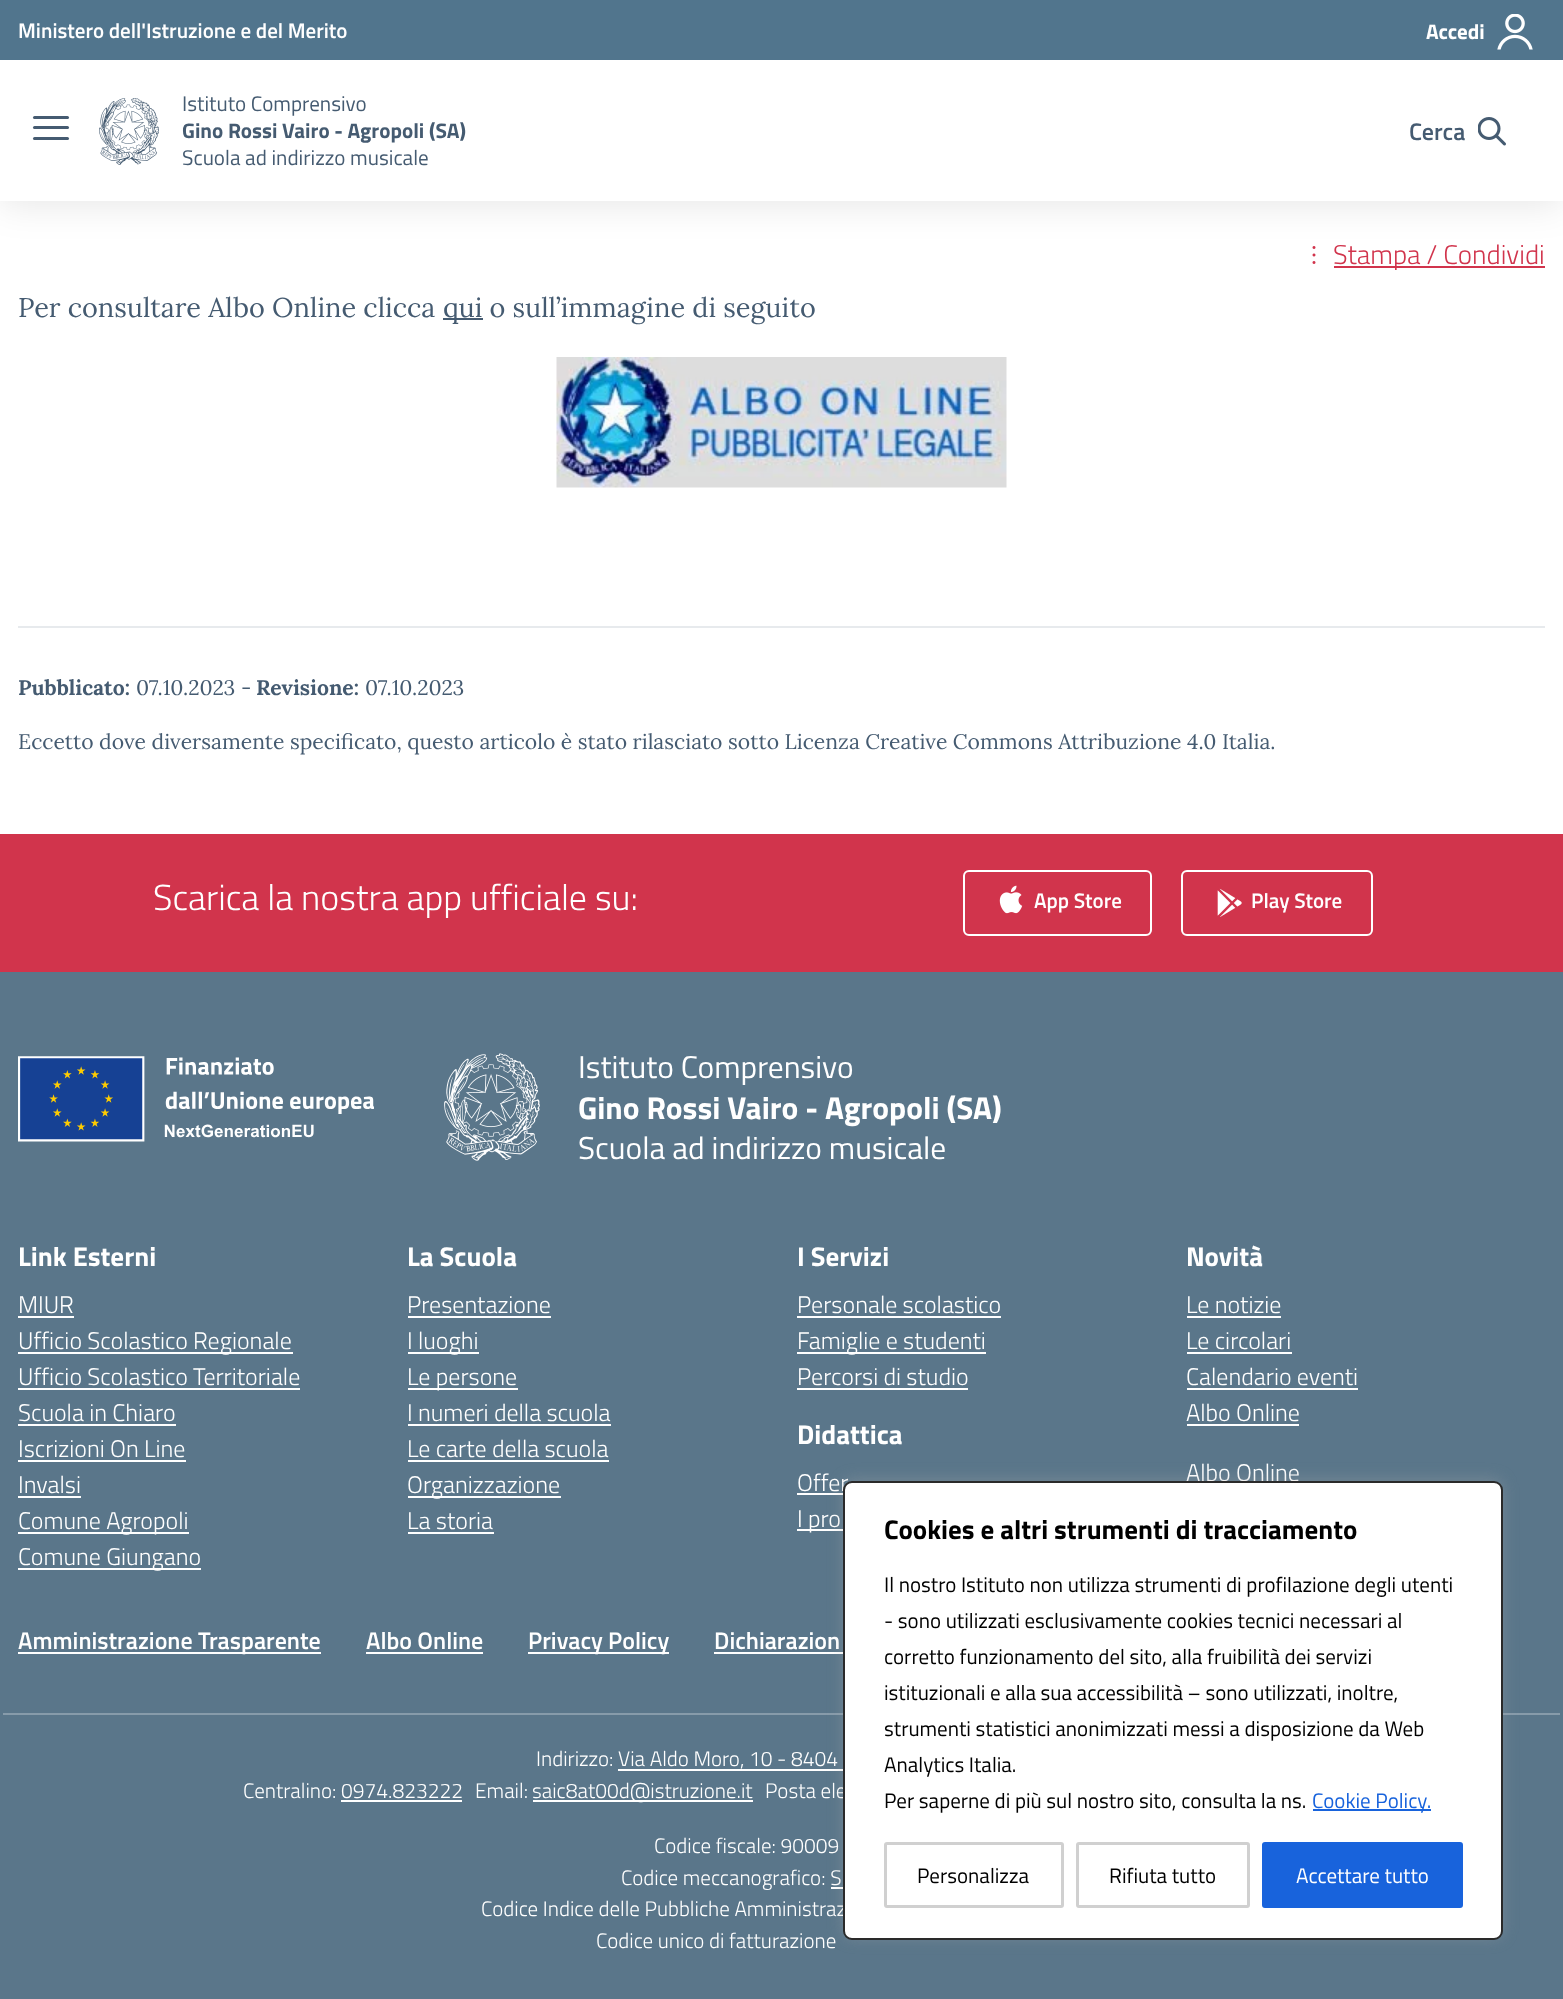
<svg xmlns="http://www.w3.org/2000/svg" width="1563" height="1999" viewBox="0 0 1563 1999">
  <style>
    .t1 { font: 600 21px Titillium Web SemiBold; fill: #fff; }
    .t2 { font: bold 21px Titillium Web; fill: #fff; }
    .t3 { font: 21.12px Titillium Web; fill: #455b71; }
    .t4 { font: bold 21.12px Titillium Web; fill: #455b71; }
    .t5 { font: 600 24px Titillium Web SemiBold; fill: #455b71; }
    .t6 { font: 300 27.1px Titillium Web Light; fill: #d1344c; }
    .t7 { font: 27.1px Lora; fill: #455b71; }
    .t8 { font: bold 21.12px Lora; fill: #455b71; }
    .t9 { font: 21.12px Lora; fill: #455b71; }
    .t10 { font: 300 36px Titillium Web Light; fill: #fff; }
    .t11 { font: 31.5px Titillium Web; fill: #fff; }
    .t12 { font: bold 31.5px Titillium Web; fill: #fff; }
    .t13 { font: bold 27.1px Titillium Web; fill: #fff; }
    .t14 { font: 300 24px Titillium Web Light; fill: #fff; }
    .t15 { font: 600 24px Titillium Web SemiBold; fill: #fff; }
    .t16 { font: 300 21px Titillium Web Light; fill: #fff; }
    .t17 { font: bold 27px Titillium Web; fill: #000; }
    .t18 { font: 21px Titillium Web; fill: #000; }
    .t19 { font: 21px Titillium Web; fill: #1863dc; }
    .t20 { font: 21px Titillium Web; fill: #fff; }
  </style>
  <rect width="100%" height="100%" fill="#fff"/>
  <image x="1312" y="246" width="4" height="18" href="images/4.png"/>
  <rect x="0" y="3" width="1563" height="201" fill="#0000001a" filter="blur(18.5px)"/>
  <rect x="0" y="60" width="1563" height="141" fill="#fff"/>
  <rect x="0" y="0" width="1563" height="60" fill="#51758d"/>
  <text x="18" y="38" class="t1">Ministero dell'Istruzione e del Merito</text>
  <text x="1426" y="39" class="t2">Accedi</text>
  <image x="1497" y="14" width="36" height="36" href="images/1.png"/>
  <rect x="33" y="126" width="36" height="3" rx="1.5" fill="#455b71"/>
  <rect x="33" y="116" width="36" height="3" rx="1.5" fill="#455b71"/>
  <rect x="33" y="137" width="36" height="3" rx="1.5" fill="#455b71"/>
  <image x="99" y="98" width="60" height="67" href="images/2.png"/>
  <text x="182" y="111" class="t3">Istituto Comprensivo</text>
  <text x="182" y="138" class="t4">Gino Rossi Vairo - Agropoli (SA)</text>
  <text x="182" y="165" class="t3">Scuola ad indirizzo musicale</text>
  <text x="1409" y="140" class="t5">Cerca</text>
  <image x="1478" y="117" width="28" height="29" href="images/3.png"/>
  <rect x="1334" y="266" width="211" height="2" fill="#d1344c"/>
  <text x="1333" y="264" class="t6">Stampa / Condividi</text>
  <text x="18" y="317" class="t7">Per consultare Albo Online clicca</text>
  <rect x="443" y="318" width="40" height="2" fill="#455b71"/>
  <text x="443" y="317" class="t7">qui o sull’immagine di seguito</text>
  <image x="556" y="357" width="451" height="131" href="images/5.png"/>
  <rect x="18" y="626" width="1527" height="2" fill="#e7eaed"/>
  <text x="18" y="695" class="t8">Pubblicato:</text>
  <text x="136" y="695" class="t9">07.10.2023 -</text>
  <text x="256" y="695" class="t8">Revisione:</text>
  <text x="365" y="695" class="t9">07.10.2023</text>
  <text x="18" y="749" class="t9">Eccetto dove diversamente specificato, questo articolo è stato rilasciato sotto Licenza Creative Commons Attribuzione 4.0 Italia.</text>
  <rect x="0" y="834" width="1563" height="138" fill="#d1344c"/>
  <text x="153" y="910" class="t10">Scarica la nostra app ufficiale su:</text>
  <rect x="964" y="871" width="187" height="64" rx="5" fill="none" stroke="#fff" stroke-width="2"/>
  <image x="999" y="885" width="24" height="29" href="images/6.png"/>
  <text x="1034" y="908" class="t1">App Store</text>
  <rect x="1182" y="871" width="190" height="64" rx="5" fill="none" stroke="#fff" stroke-width="2"/>
  <image x="1217" y="888" width="25" height="29" href="images/7.png"/>
  <text x="1251" y="908" class="t1">Play Store</text>
  <rect x="0" y="972" width="1563" height="1027" fill="#5a768a"/>
  <image x="18" y="1056" width="356" height="86" href="images/8.png"/>
  <image x="444" y="1053" width="96" height="108" href="images/9.png"/>
  <text x="578" y="1078" class="t11">Istituto Comprensivo</text>
  <text x="578" y="1119" class="t12">Gino Rossi Vairo - Agropoli (SA)</text>
  <text x="578" y="1159" class="t11">Scuola ad indirizzo musicale</text>
  <text x="18" y="1266" class="t13">Link Esterni</text>
  <text x="18" y="1313" class="t14">MIUR</text>
  <rect x="18" y="1316" width="56" height="2" fill="#fff"/>
  <rect x="18" y="1352" width="275" height="2" fill="#fff"/>
  <text x="18" y="1349" class="t14">Ufficio Scolastico Regionale</text>
  <text x="18" y="1385" class="t14">Ufficio Scolastico Territoriale</text>
  <rect x="18" y="1388" width="282" height="2" fill="#fff"/>
  <text x="18" y="1421" class="t14">Scuola in Chiaro</text>
  <rect x="18" y="1424" width="158" height="2" fill="#fff"/>
  <text x="18" y="1457" class="t14">Iscrizioni On Line</text>
  <rect x="18" y="1460" width="168" height="2" fill="#fff"/>
  <text x="18" y="1493" class="t14">Invalsi</text>
  <rect x="18" y="1496" width="63" height="2" fill="#fff"/>
  <rect x="18" y="1532" width="171" height="2" fill="#fff"/>
  <text x="18" y="1529" class="t14">Comune Agropoli</text>
  <rect x="18" y="1568" width="183" height="2" fill="#fff"/>
  <text x="18" y="1565" class="t14">Comune Giungano</text>
  <text x="407" y="1266" class="t13">La Scuola</text>
  <text x="407" y="1313" class="t14">Presentazione</text>
  <rect x="408" y="1316" width="143" height="2" fill="#fff"/>
  <rect x="408" y="1352" width="71" height="2" fill="#fff"/>
  <text x="407" y="1349" class="t14">I luoghi</text>
  <rect x="408" y="1388" width="110" height="2" fill="#fff"/>
  <text x="407" y="1385" class="t14">Le persone</text>
  <text x="407" y="1421" class="t14">I numeri della scuola</text>
  <rect x="408" y="1424" width="203" height="2" fill="#fff"/>
  <text x="407" y="1457" class="t14">Le carte della scuola</text>
  <rect x="408" y="1460" width="201" height="2" fill="#fff"/>
  <rect x="408" y="1496" width="153" height="2" fill="#fff"/>
  <text x="407" y="1493" class="t14">Organizzazione</text>
  <text x="407" y="1529" class="t14">La storia</text>
  <rect x="408" y="1532" width="86" height="2" fill="#fff"/>
  <text x="797" y="1266" class="t13">I Servizi</text>
  <text x="797" y="1313" class="t14">Personale scolastico</text>
  <rect x="797" y="1316" width="204" height="2" fill="#fff"/>
  <rect x="797" y="1352" width="189" height="2" fill="#fff"/>
  <text x="797" y="1349" class="t14">Famiglie e studenti</text>
  <text x="797" y="1385" class="t14">Percorsi di studio</text>
  <rect x="797" y="1388" width="171" height="2" fill="#fff"/>
  <text x="797" y="1444" class="t13">Didattica</text>
  <text x="797" y="1491" class="t14">Offer</text>
  <rect x="797" y="1493" width="46" height="2" fill="#fff"/>
  <rect x="797" y="1529" width="46" height="2" fill="#fff"/>
  <text x="797" y="1527" class="t14">I pro</text>
  <text x="1186" y="1266" class="t13">Novità</text>
  <text x="1186" y="1313" class="t14">Le notizie</text>
  <rect x="1187" y="1316" width="94" height="2" fill="#fff"/>
  <text x="1186" y="1349" class="t14">Le circolari</text>
  <rect x="1187" y="1352" width="105" height="2" fill="#fff"/>
  <text x="1186" y="1385" class="t14">Calendario eventi</text>
  <rect x="1187" y="1388" width="171" height="2" fill="#fff"/>
  <text x="1186" y="1421" class="t14">Albo Online</text>
  <rect x="1187" y="1424" width="112" height="2" fill="#fff"/>
  <text x="1186" y="1481" class="t14">Albo Online</text>
  <rect x="18" y="1652" width="303" height="2" fill="#fff"/>
  <text x="18" y="1649" class="t15">Amministrazione Trasparente</text>
  <text x="366" y="1649" class="t15">Albo Online</text>
  <rect x="366" y="1652" width="117" height="2" fill="#fff"/>
  <rect x="528" y="1652" width="141" height="2" fill="#fff"/>
  <text x="528" y="1649" class="t15">Privacy Policy</text>
  <text x="714" y="1649" class="t15">Dichiarazion</text>
  <rect x="714" y="1652" width="129" height="2" fill="#fff"/>
  <rect x="3" y="1713" width="1557" height="2" fill="#879baa"/>
  <text x="536" y="1766" class="t16">Indirizzo: Via Aldo Moro, 10 - 8404</text>
  <rect x="618" y="1769" width="225" height="2" fill="#fff"/>
  <text x="243" y="1798" class="t16">Centralino: 0974.823222</text>
  <rect x="341" y="1800" width="121" height="2" fill="#fff"/>
  <text x="475" y="1798" class="t16">Email:</text>
  <rect x="533" y="1800" width="220" height="2" fill="#fff"/>
  <text x="532" y="1798" class="t16">saic8at00d@istruzione.it</text>
  <text x="765" y="1798" class="t16">Posta ele</text>
  <text x="654" y="1853" class="t16">Codice fiscale: 90009</text>
  <text x="621" y="1885" class="t16">Codice meccanografico: S</text>
  <rect x="831" y="1887" width="12" height="2" fill="#fff"/>
  <text x="481" y="1916" class="t16">Codice Indice delle Pubbliche Amministraz</text>
  <text x="596" y="1948" class="t16">Codice unico di fatturazione</text>
  <rect x="843" y="1479" width="660" height="459" rx="9" fill="#acabab4d" filter="blur(7.5px)"/>
  <rect x="844" y="1482" width="658" height="457" rx="8" fill="#fff" stroke="#2a2a2a" stroke-width="2"/>
  <text x="884" y="1539" class="t17">Cookies e altri strumenti di tracciamento</text>
  <text x="884" y="1592" class="t18">Il nostro Istituto non utilizza strumenti di profilazione degli utenti</text>
  <text x="884" y="1628" class="t18">- sono utilizzati esclusivamente cookies tecnici necessari al</text>
  <text x="884" y="1664" class="t18">corretto funzionamento del sito, alla fruibilità dei servizi</text>
  <text x="884" y="1700" class="t18">istituzionali e alla sua accessibilità – sono utilizzati, inoltre,</text>
  <text x="884" y="1736" class="t18">strumenti statistici anonimizzati messi a disposizione da Web</text>
  <text x="884" y="1772" class="t18">Analytics Italia.</text>
  <text x="884" y="1808" class="t18">Per saperne di più sul nostro sito, consulta la ns.</text>
  <rect x="1313" y="1809" width="118" height="2" fill="#1863dc"/>
  <text x="1312" y="1808" class="t19">Cookie Policy.</text>
  <rect x="885.5" y="1843.5" width="177" height="63" rx="1.5" fill="none" stroke="#d0d0d0" stroke-width="3"/>
  <text x="917" y="1883" class="t18">Personalizza</text>
  <rect x="1077.5" y="1843.5" width="171" height="63" rx="1.5" fill="none" stroke="#d0d0d0" stroke-width="3"/>
  <text x="1109" y="1883" class="t18">Rifiuta tutto</text>
  <rect x="1263.5" y="1843.5" width="198" height="63" rx="1.5" fill="#1863dc" stroke="#1863dc" stroke-width="3"/>
  <text x="1296" y="1883" class="t20">Accettare tutto</text>
</svg>
